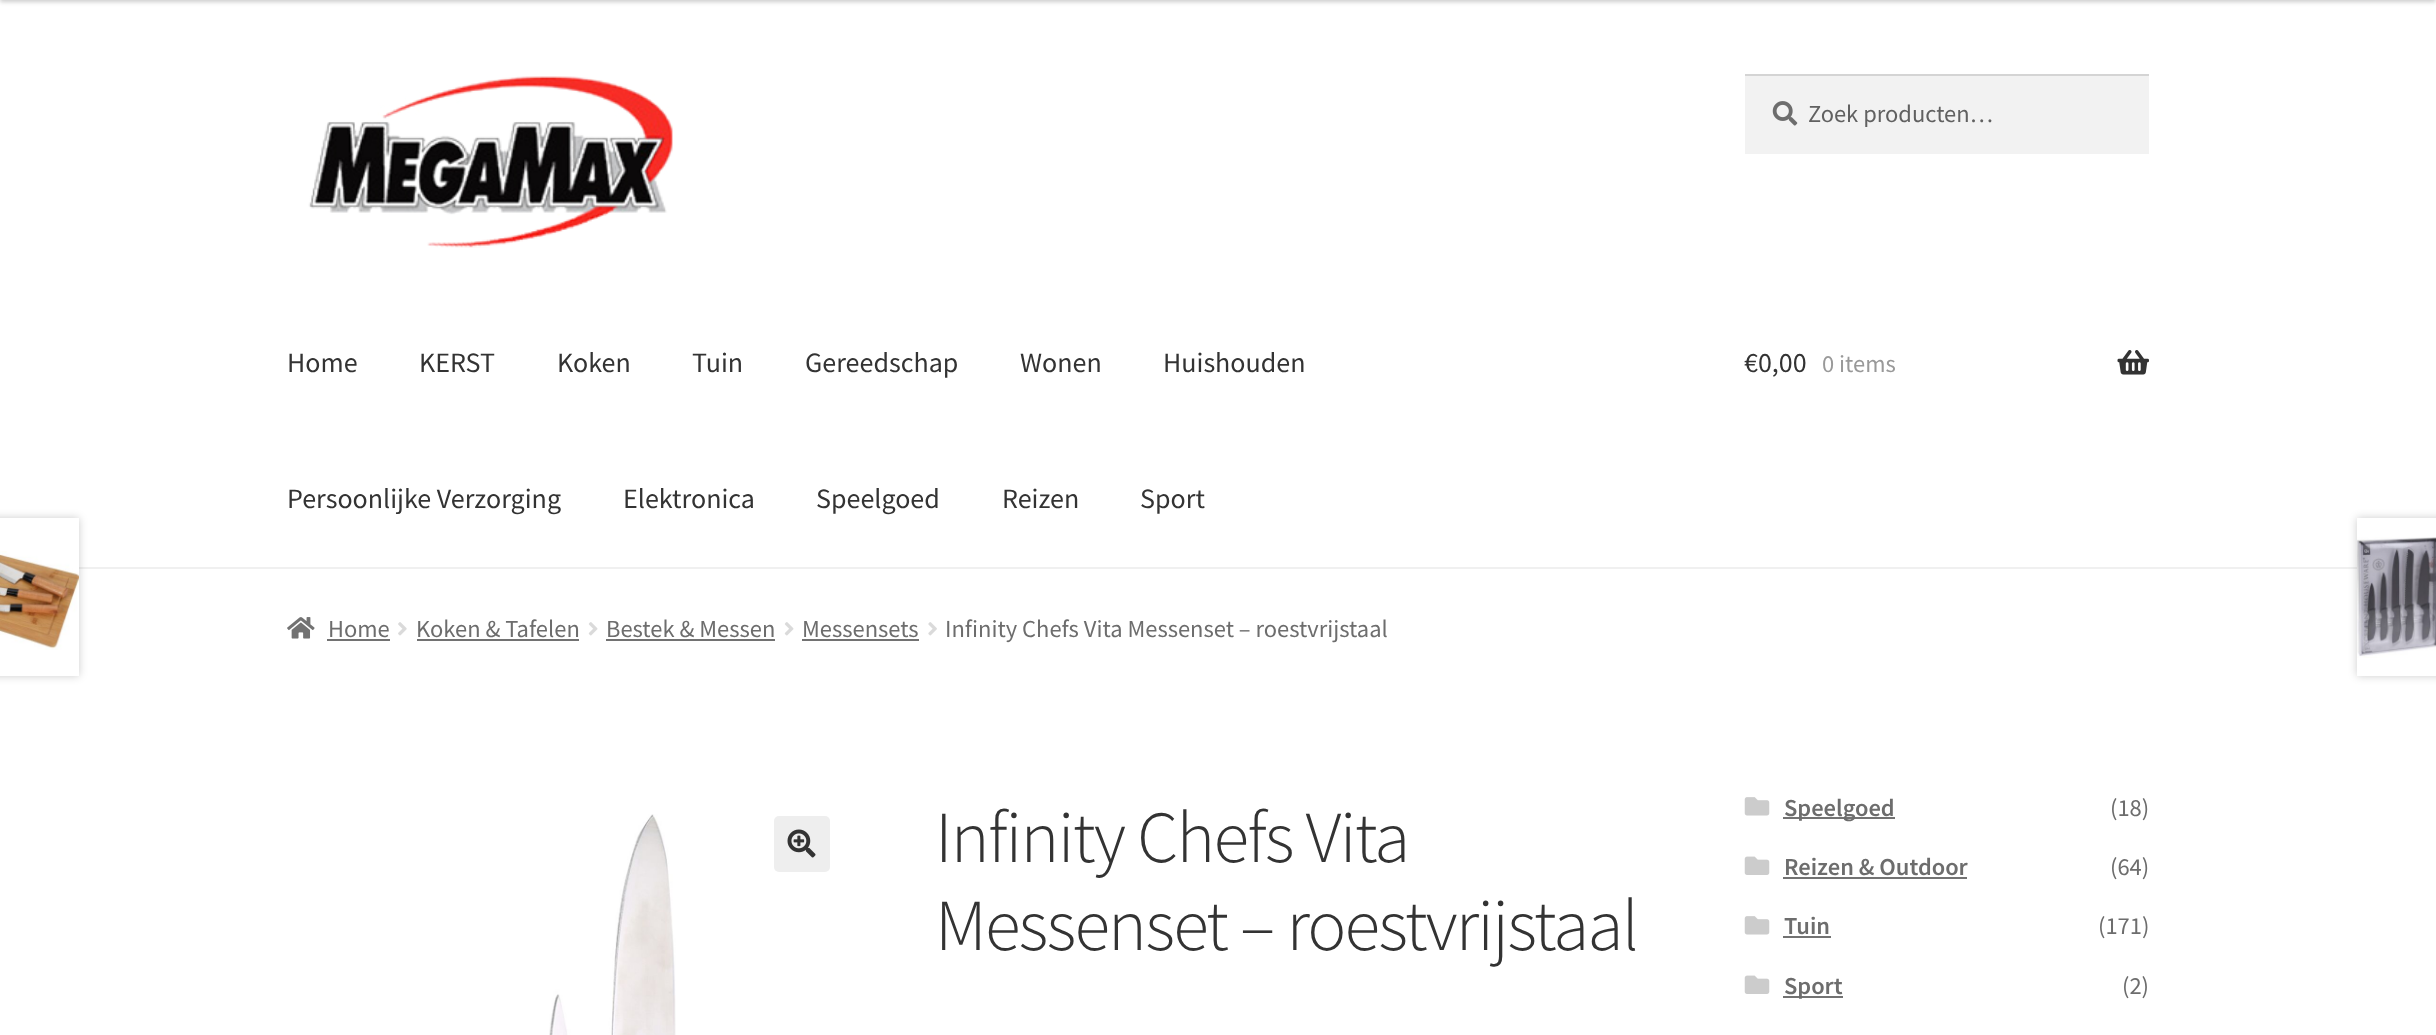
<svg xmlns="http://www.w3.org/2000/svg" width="2436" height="1035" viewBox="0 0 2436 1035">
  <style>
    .t1 { font: 24.5px Source Sans Pro; fill: #616161; }
    .t2 { font: 28px Source Sans Pro; fill: #333; }
    .t3 { font: 24.5px Source Sans Pro; fill: #999; }
    .t4 { font: 24.5px Source Sans Pro; fill: #6d6d6d; }
    .t5 { font: 300 73.25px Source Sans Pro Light; letter-spacing: -1.75px; fill: #333; }
    .t6 { font: 600 24.5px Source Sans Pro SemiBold; fill: #6d6d6d; }
  </style>
  <rect width="100%" height="100%" fill="#fff"/>
  <rect x="0" y="-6" width="2436" height="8" fill="#00000033" filter="blur(2px)"/>
  <rect x="79" y="567" width="2278" height="2" fill="#f0f0f0"/>
  <image x="308" y="76" width="365" height="172" href="images/1.png"/>
  <rect x="1745" y="76" width="404" height="78" fill="#f2f2f2"/>
  <image x="1772" y="101" width="26" height="25" href="images/2.png"/>
  <rect x="1745" y="74" width="404" height="2" fill="#d4d4d4"/>
  <text x="1808" y="122" class="t1">Zoek producten…</text>
  <text x="287" y="372" class="t2">Home</text>
  <text x="419" y="372" class="t2">KERST</text>
  <text x="557" y="372" class="t2">Koken</text>
  <text x="692" y="372" class="t2">Tuin</text>
  <text x="805" y="372" class="t2">Gereedschap</text>
  <text x="1020" y="372" class="t2">Wonen</text>
  <text x="1163" y="372" class="t2">Huishouden</text>
  <text x="287" y="508" class="t2">Persoonlijke Verzorging</text>
  <text x="623" y="508" class="t2">Elektronica</text>
  <text x="816" y="508" class="t2">Speelgoed</text>
  <text x="1002" y="508" class="t2">Reizen</text>
  <text x="1140" y="508" class="t2">Sport</text>
  <text x="1744" y="372" class="t2">€0,00</text>
  <text x="1822" y="372" class="t3">0 items</text>
  <image x="2117" y="350" width="32" height="25" href="images/3.png"/>
  <image x="287" y="617" width="28" height="22" href="images/4.png"/>
  <text x="328" y="637" class="t4">Home</text>
  <rect x="327" y="639" width="63" height="2" fill="#727272"/>
  <image x="398" y="622" width="9" height="14" href="images/5.png"/>
  <text x="416" y="637" class="t4">Koken &amp; Tafelen</text>
  <rect x="417" y="639" width="162" height="2" fill="#727272"/>
  <image x="588" y="622" width="10" height="14" href="images/6.png"/>
  <text x="606" y="637" class="t4">Bestek &amp; Messen</text>
  <rect x="606" y="639" width="169" height="2" fill="#727272"/>
  <image x="784" y="622" width="10" height="14" href="images/6.png"/>
  <text x="802" y="637" class="t4">Messensets</text>
  <rect x="802" y="639" width="117" height="2" fill="#727272"/>
  <image x="928" y="622" width="9" height="14" href="images/7.png"/>
  <text x="945" y="637" class="t4">Infinity Chefs Vita Messenset – roestvrijstaal</text>
  <rect x="-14" y="518" width="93" height="158" fill="#00000033" filter="blur(4.5px)"/>
  <rect x="0" y="518" width="79" height="158" fill="#fff"/>
  <image x="0" y="551" width="79" height="99" href="images/8.png"/>
  <rect x="2357" y="518" width="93" height="158" fill="#00000033" filter="blur(4.5px)"/>
  <rect x="2357" y="518" width="79" height="158" fill="#fff"/>
  <image x="2357" y="537" width="79" height="121" href="images/9.png"/>
  <image x="549" y="814" width="127" height="221" href="images/10.png"/>
  <rect x="774" y="816" width="56" height="56" rx="5" fill="#eee"/>
  <image x="787" y="829" width="29" height="29" href="images/11.png"/>
  <text x="935" y="862" class="t5">Infinity Chefs Vita</text>
  <text x="935" y="950" class="t5">Messenset – roestvrijstaal</text>
  <image x="1744" y="797" width="26" height="19" href="images/12.png"/>
  <rect x="1783" y="817" width="112" height="2" fill="#727272"/>
  <text x="1784" y="816" class="t6">Speelgoed</text>
  <text x="2110" y="816" class="t4">(18)</text>
  <image x="1744" y="856" width="26" height="19" href="images/13.png"/>
  <text x="1784" y="875" class="t6">Reizen &amp; Outdoor</text>
  <rect x="1783" y="877" width="184" height="2" fill="#727272"/>
  <text x="2110" y="875" class="t4">(64)</text>
  <image x="1744" y="916" width="26" height="19" href="images/12.png"/>
  <text x="1784" y="934" class="t6">Tuin</text>
  <rect x="1783" y="936" width="48" height="2" fill="#727272"/>
  <text x="2098" y="934" class="t4">(171)</text>
  <image x="1744" y="975" width="26" height="19" href="images/13.png"/>
  <rect x="1783" y="996" width="60" height="2" fill="#727272"/>
  <text x="1784" y="994" class="t6">Sport</text>
  <text x="2122" y="994" class="t4">(2)</text>
</svg>
